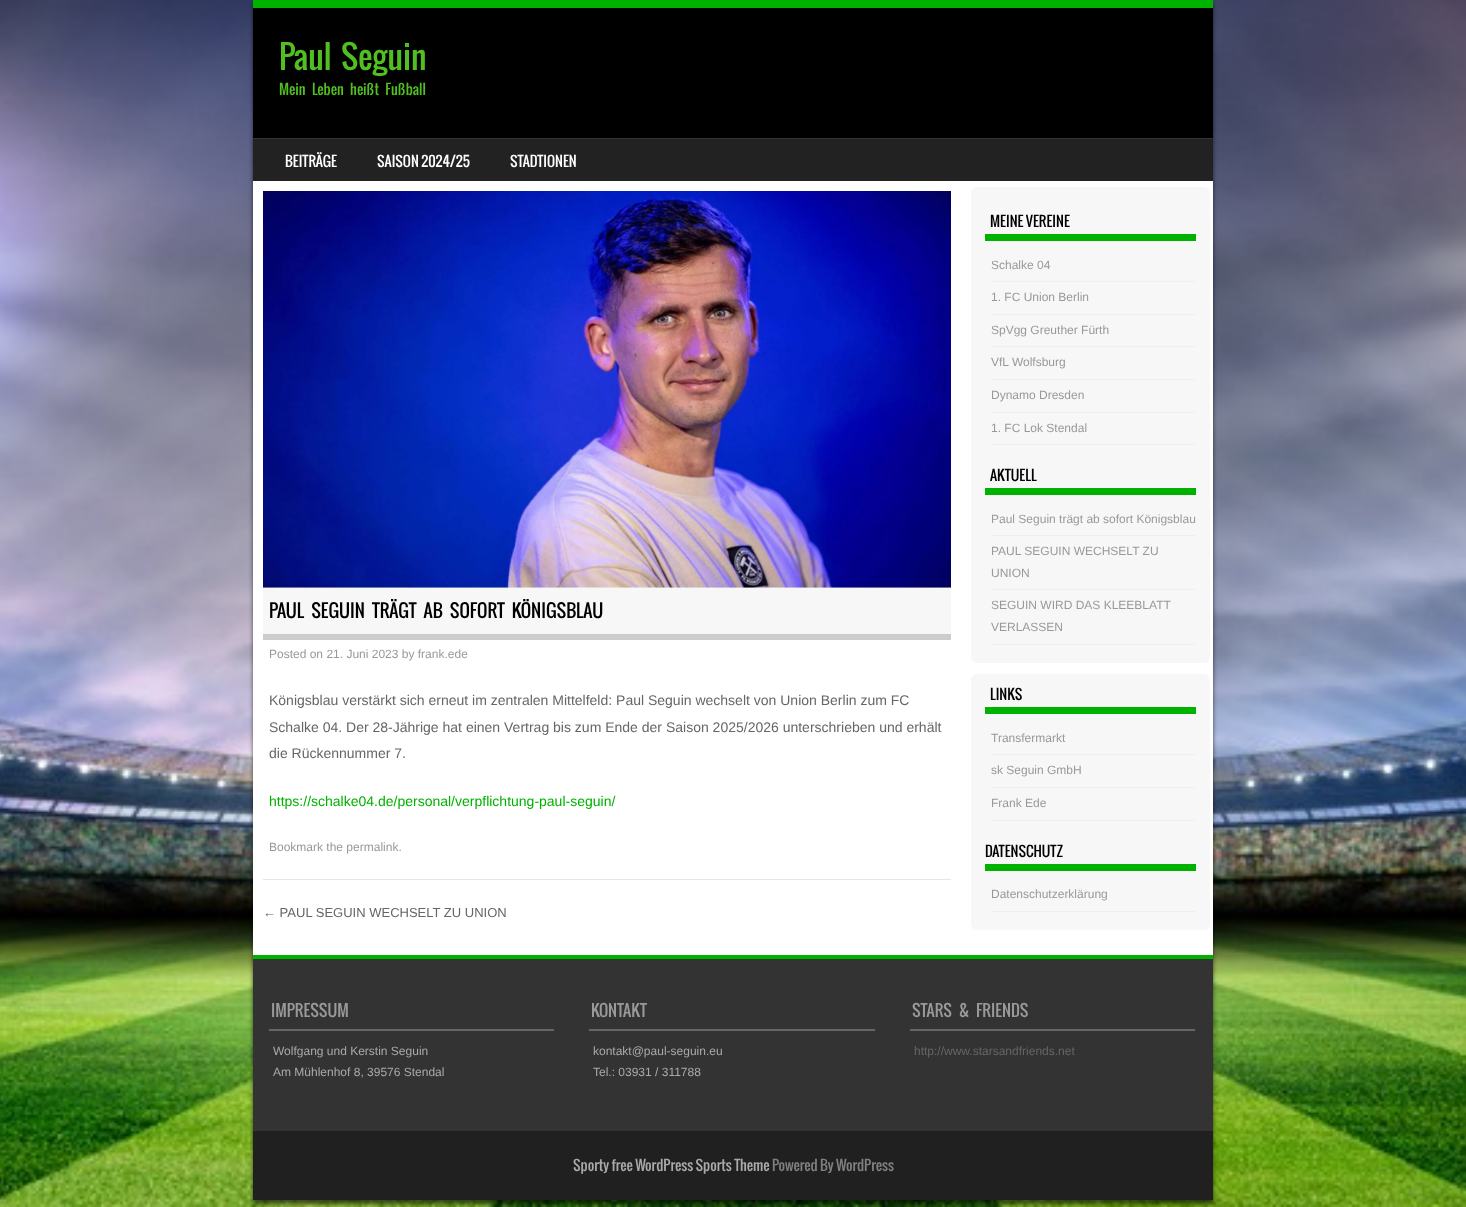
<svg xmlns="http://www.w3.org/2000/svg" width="1466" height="1207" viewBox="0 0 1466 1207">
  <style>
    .t1 { font: 32px Oswald; fill: #52bf20; }
    .t2 { font: 14px Oswald; fill: #52bf20; }
    .t3 { font: 14px Oswald; fill: #fff; }
    .t4 { font: 14px Oswald; fill: #000; }
    .t5 { font: 12px Liberation Sans; fill: #999; }
    .t6 { font: 18px Oswald; fill: #000; }
    .t7 { font: 14px Liberation Sans; fill: #666; }
    .t8 { font: 14px Liberation Sans; fill: #00b200; }
    .t9 { font: 13px Liberation Sans; fill: #666; }
    .t10 { font: 16px Oswald; fill: #999; }
    .t11 { font: 12px Liberation Sans; fill: #aaa; }
    .t12 { font: 12px Liberation Sans; fill: #666; }
    .t13 { font: 14px Oswald; fill: #aaa; }
    .t14 { font: 14px Oswald; fill: #808080; }
  </style>
  <rect width="100%" height="100%" fill="#fff"/>
  <image x="0" y="0" width="1466" height="1207" href="images/1.png"/>
  <rect x="253" y="4" width="960" height="1200" fill="#00000099" filter="blur(2px)"/>
  <rect x="253" y="8" width="960" height="130" fill="#000"/>
  <rect x="253" y="0" width="960" height="8" fill="#00b200"/>
  <text x="279" y="70" word-spacing="4" class="t1">Paul Seguin</text>
  <text x="279" y="95" word-spacing="4" class="t2">Mein Leben heißt Fußball</text>
  <rect x="253" y="139" width="960" height="42" fill="#222"/>
  <rect x="253" y="138" width="960" height="1" fill="#333"/>
  <text x="285" y="167" class="t3">BEITRÄGE</text>
  <text x="377" y="167" class="t3">SAISON 2024/25</text>
  <text x="510" y="167" class="t3">STADTIONEN</text>
  <rect x="253" y="181" width="960" height="774" fill="#fff"/>
  <rect x="971" y="187" width="239" height="476" rx="6" fill="#f7f7f7"/>
  <rect x="985" y="234" width="211" height="7" fill="#00b200"/>
  <text x="990" y="227" class="t4">MEINE VEREINE</text>
  <rect x="991" y="281" width="205" height="1" fill="#efefef"/>
  <text x="991" y="269" class="t5">Schalke 04</text>
  <rect x="991" y="314" width="205" height="1" fill="#efefef"/>
  <text x="991" y="301" class="t5">1. FC Union Berlin</text>
  <rect x="991" y="346" width="205" height="1" fill="#efefef"/>
  <text x="991" y="334" class="t5">SpVgg Greuther Fürth</text>
  <rect x="991" y="379" width="205" height="1" fill="#efefef"/>
  <text x="991" y="366" class="t5">VfL Wolfsburg</text>
  <rect x="991" y="412" width="205" height="1" fill="#efefef"/>
  <text x="991" y="399" class="t5">Dynamo Dresden</text>
  <rect x="991" y="444" width="205" height="1" fill="#efefef"/>
  <text x="991" y="432" class="t5">1. FC Lok Stendal</text>
  <rect x="985" y="488" width="211" height="7" fill="#00b200"/>
  <text x="990" y="481" class="t4">AKTUELL</text>
  <rect x="991" y="535" width="205" height="1" fill="#efefef"/>
  <text x="991" y="523" class="t5">Paul Seguin trägt ab sofort Königsblau</text>
  <rect x="991" y="589" width="205" height="1" fill="#efefef"/>
  <text x="991" y="555" class="t5">PAUL SEGUIN WECHSELT ZU</text>
  <text x="991" y="577" class="t5">UNION</text>
  <rect x="991" y="644" width="205" height="1" fill="#efefef"/>
  <text x="991" y="609" class="t5">SEGUIN WIRD DAS KLEEBLATT</text>
  <text x="991" y="631" class="t5">VERLASSEN</text>
  <rect x="263" y="879" width="688" height="1" fill="#e6e6e6"/>
  <image x="263" y="191" width="688" height="397" href="images/2.png"/>
  <rect x="263" y="588" width="688" height="46" fill="#f7f7f7"/>
  <rect x="263" y="634" width="688" height="6" fill="#ccc"/>
  <text x="269" y="618" word-spacing="4" class="t6">PAUL SEGUIN TRÄGT AB SOFORT KÖNIGSBLAU</text>
  <text x="269" y="658" class="t5">Posted on 21. Juni 2023 by frank.ede</text>
  <text x="269" y="705" class="t7">Königsblau verstärkt sich erneut im zentralen Mittelfeld: Paul Seguin wechselt von Union Berlin zum FC</text>
  <text x="269" y="732" class="t7">Schalke 04. Der 28-Jährige hat einen Vertrag bis zum Ende der Saison 2025/2026 unterschrieben und erhält</text>
  <text x="269" y="758" class="t7">die Rückennummer 7.</text>
  <text x="269" y="806" class="t8">https://schalke04.de/personal/verpflichtung-paul-seguin/</text>
  <text x="269" y="851" class="t5">Bookmark the permalink.</text>
  <text x="263" y="917" class="t9">← PAUL SEGUIN WECHSELT ZU UNION</text>
  <rect x="971" y="674" width="239" height="256" rx="6" fill="#f7f7f7"/>
  <rect x="985" y="707" width="211" height="7" fill="#00b200"/>
  <text x="990" y="700" class="t4">LINKS</text>
  <rect x="991" y="754" width="205" height="1" fill="#efefef"/>
  <text x="991" y="742" class="t5">Transfermarkt</text>
  <rect x="991" y="787" width="205" height="1" fill="#efefef"/>
  <text x="991" y="774" class="t5">sk Seguin GmbH</text>
  <rect x="991" y="820" width="205" height="1" fill="#efefef"/>
  <text x="991" y="807" class="t5">Frank Ede</text>
  <rect x="985" y="864" width="211" height="7" fill="#00b200"/>
  <text x="985" y="857" class="t4">DATENSCHUTZ</text>
  <rect x="991" y="911" width="205" height="1" fill="#efefef"/>
  <text x="991" y="898" class="t5">Datenschutzerklärung</text>
  <rect x="253" y="959" width="960" height="172" fill="#333"/>
  <rect x="253" y="955" width="960" height="4" fill="#00b200"/>
  <rect x="269" y="1029" width="285" height="2" fill="#666"/>
  <text x="271" y="1017" class="t10">IMPRESSUM</text>
  <text x="273" y="1055" class="t11">Wolfgang und Kerstin Seguin</text>
  <text x="273" y="1076" class="t11">Am Mühlenhof 8, 39576 Stendal</text>
  <rect x="589" y="1029" width="286" height="2" fill="#666"/>
  <text x="591" y="1017" class="t10">KONTAKT</text>
  <text x="593" y="1055" class="t11">kontakt@paul-seguin.eu</text>
  <text x="593" y="1076" class="t11">Tel.: 03931 / 311788</text>
  <rect x="910" y="1029" width="285" height="2" fill="#666"/>
  <text x="912" y="1017" word-spacing="4" class="t10">STARS &amp; FRIENDS</text>
  <text x="914" y="1055" class="t12">http://www.starsandfriends.net</text>
  <rect x="253" y="1131" width="960" height="69" fill="#202020"/>
  <text x="573" y="1171" class="t13">Sporty free WordPress Sports Theme</text>
  <text x="772" y="1171" class="t14">Powered By WordPress</text>
</svg>
